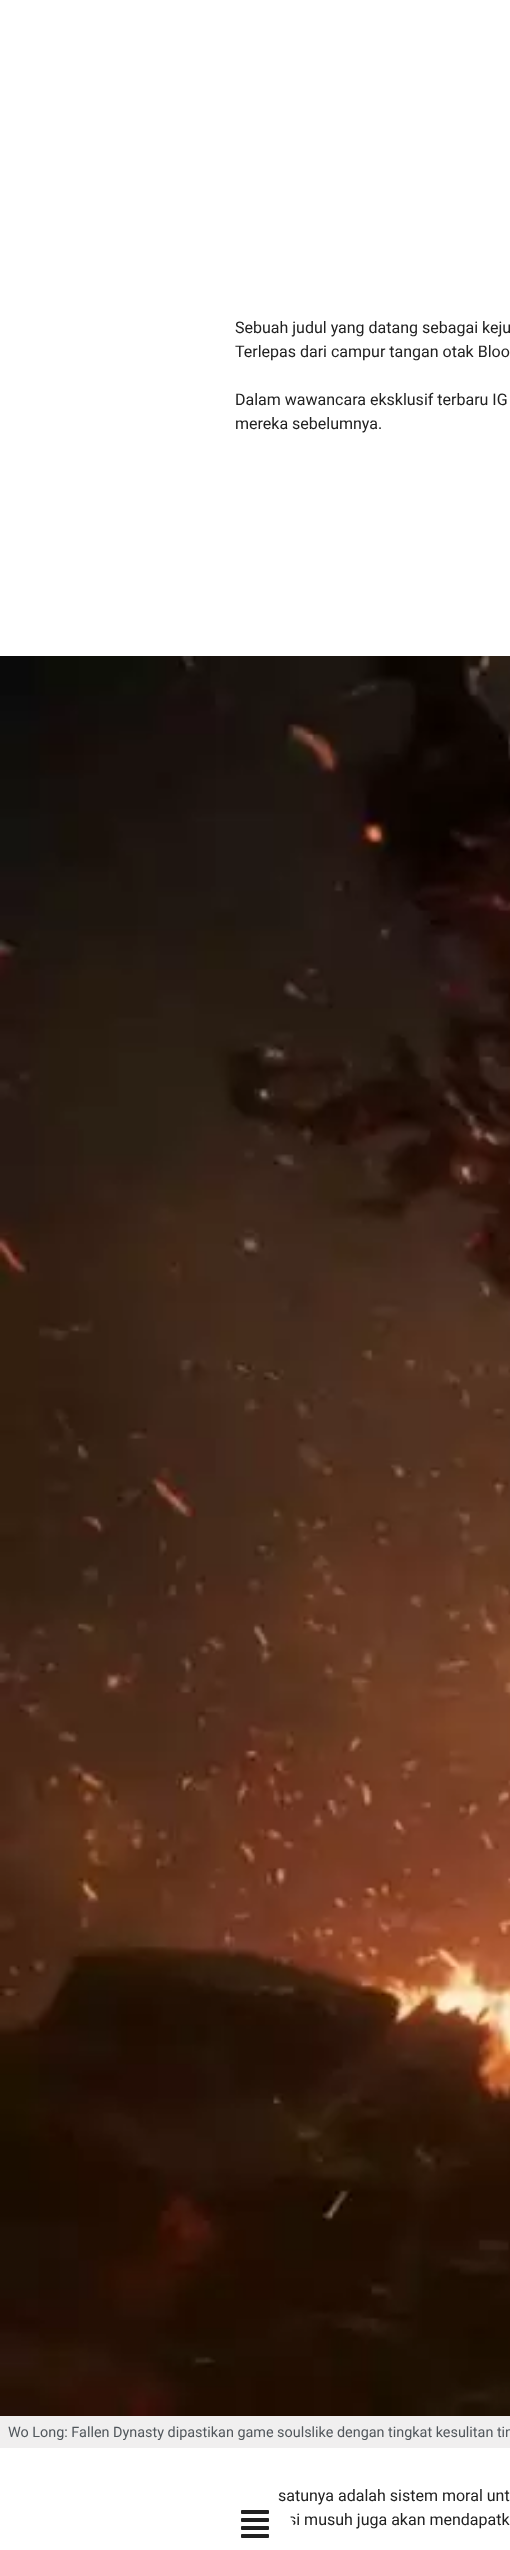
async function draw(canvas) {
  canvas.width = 510
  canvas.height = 2550
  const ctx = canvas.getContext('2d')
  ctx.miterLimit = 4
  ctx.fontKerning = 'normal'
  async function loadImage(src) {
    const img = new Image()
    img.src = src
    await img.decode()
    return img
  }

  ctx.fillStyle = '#fff'
  ctx.fillRect(0, 0, 510, 2550)
  ctx.font = '16px Roboto'
  ctx.fillStyle = '#212121'
  ctx.fillText('Sebuah judul yang datang sebagai keju', 235, 333)
  ctx.fillText('Terlepas dari campur tangan otak Bloo', 235, 357)
  ctx.fillText('Dalam wawancara eksklusif terbaru IG', 235, 405)
  ctx.fillText('mereka sebelumnya.', 235, 429)
  ctx.fillStyle = '#f0efef'
  ctx.fillRect(0, 2416, 510, 32)
  ctx.drawImage(await loadImage('image0.png'), 0, 656, 510, 1760)
  ctx.font = '14.4px Roboto'
  ctx.fillStyle = '#51575c'
  ctx.fillText('Wo Long: Fallen Dynasty dipastikan game soulslike dengan tingkat kesulitan tin', 8, 2437)
  ctx.font = '16px Roboto'
  ctx.fillStyle = '#212121'
  ctx.fillText('satunya adalah sistem moral unt', 278, 2501)
  ctx.fillText('si musuh juga akan mendapatk', 288, 2525)
  ctx.fillStyle = '#fff'
  ctx.beginPath()
  ctx.arc(255, 2535, 40, 0, 2 * Math.PI)
  ctx.fill()
  ctx.drawImage(await loadImage('image1.png'), 241, 2510, 28, 28)
}

draw(document.querySelector('canvas'))
